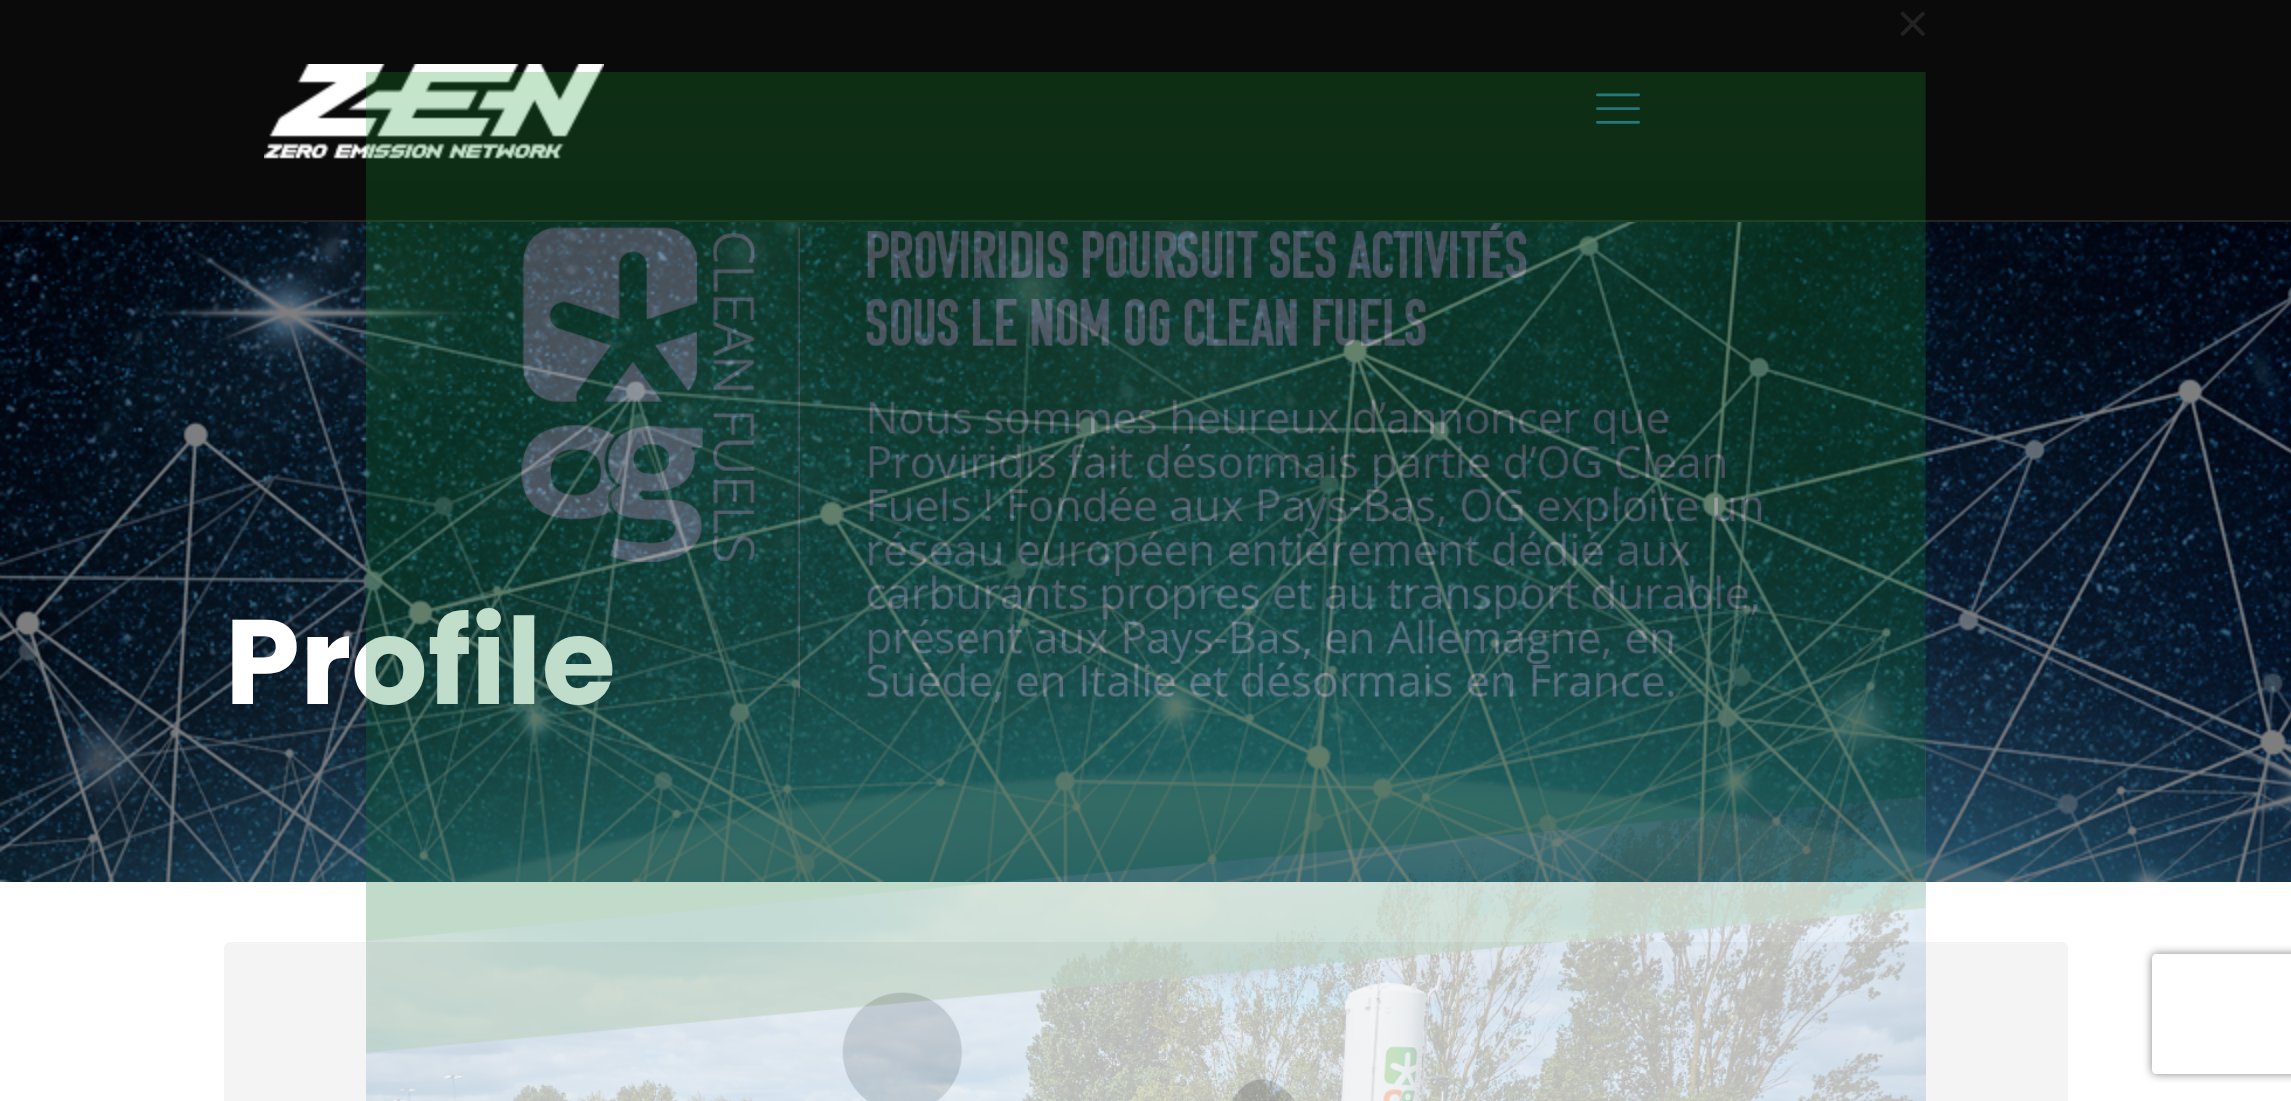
async function draw(canvas) {
  canvas.width = 2291
  canvas.height = 1101
  const ctx = canvas.getContext('2d')
  ctx.miterLimit = 4
  ctx.fontKerning = 'normal'
  async function loadImage(src) {
    const img = new Image()
    img.src = src
    await img.decode()
    return img
  }

  ctx.fillStyle = '#fff'
  ctx.fillRect(0, 0, 2291, 1101)
  ctx.fillStyle = '#0a0a0a'
  ctx.fillRect(0, 0, 2291, 220)
  ctx.font = '300 60px Poppins'
  ctx.fillStyle = '#222'
  ctx.fillText('×', 1895, 46)
  ctx.drawImage(await loadImage('image1.png'), 0, 222, 2291, 660)
  ctx.fillStyle = '#232323'
  ctx.fillRect(0, 220, 2291, 2)
  ctx.drawImage(await loadImage('image2.png'), 264, 64, 340, 95)
  ctx.drawImage(await loadImage('image3.png'), 1596, 93, 44, 31)
  ctx.font = 'bold 120px Poppins'
  ctx.fillStyle = '#fff'
  ctx.fillText('Profile', 225, 704)
  ctx.drawImage(await loadImage('image4.png'), 224, 942, 1844, 159)
  ctx.drawImage(await loadImage('image0.png'), 366, 72, 1560, 1029)
  ctx.save()
  ctx.beginPath()
  ctx.moveTo(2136, 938)
  ctx.lineTo(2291, 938)
  ctx.lineTo(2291, 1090)
  ctx.lineTo(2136, 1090)
  ctx.closePath()
  ctx.moveTo(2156, 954)
  ctx.lineTo(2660, 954)
  ctx.bezierCurveTo(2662, 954, 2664, 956, 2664, 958)
  ctx.lineTo(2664, 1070)
  ctx.bezierCurveTo(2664, 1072, 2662, 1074, 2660, 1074)
  ctx.lineTo(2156, 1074)
  ctx.bezierCurveTo(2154, 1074, 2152, 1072, 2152, 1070)
  ctx.lineTo(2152, 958)
  ctx.bezierCurveTo(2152, 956, 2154, 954, 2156, 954)
  ctx.closePath()
  ctx.clip('evenodd')
  ctx.fillStyle = '#808080'
  ctx.filter = 'blur(5px)'
  ctx.beginPath()
  ctx.roundRect(2152, 954, 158, 120, 4)
  ctx.fill()
  ctx.filter = 'none'
  ctx.restore()
}

draw(document.querySelector('canvas'))
